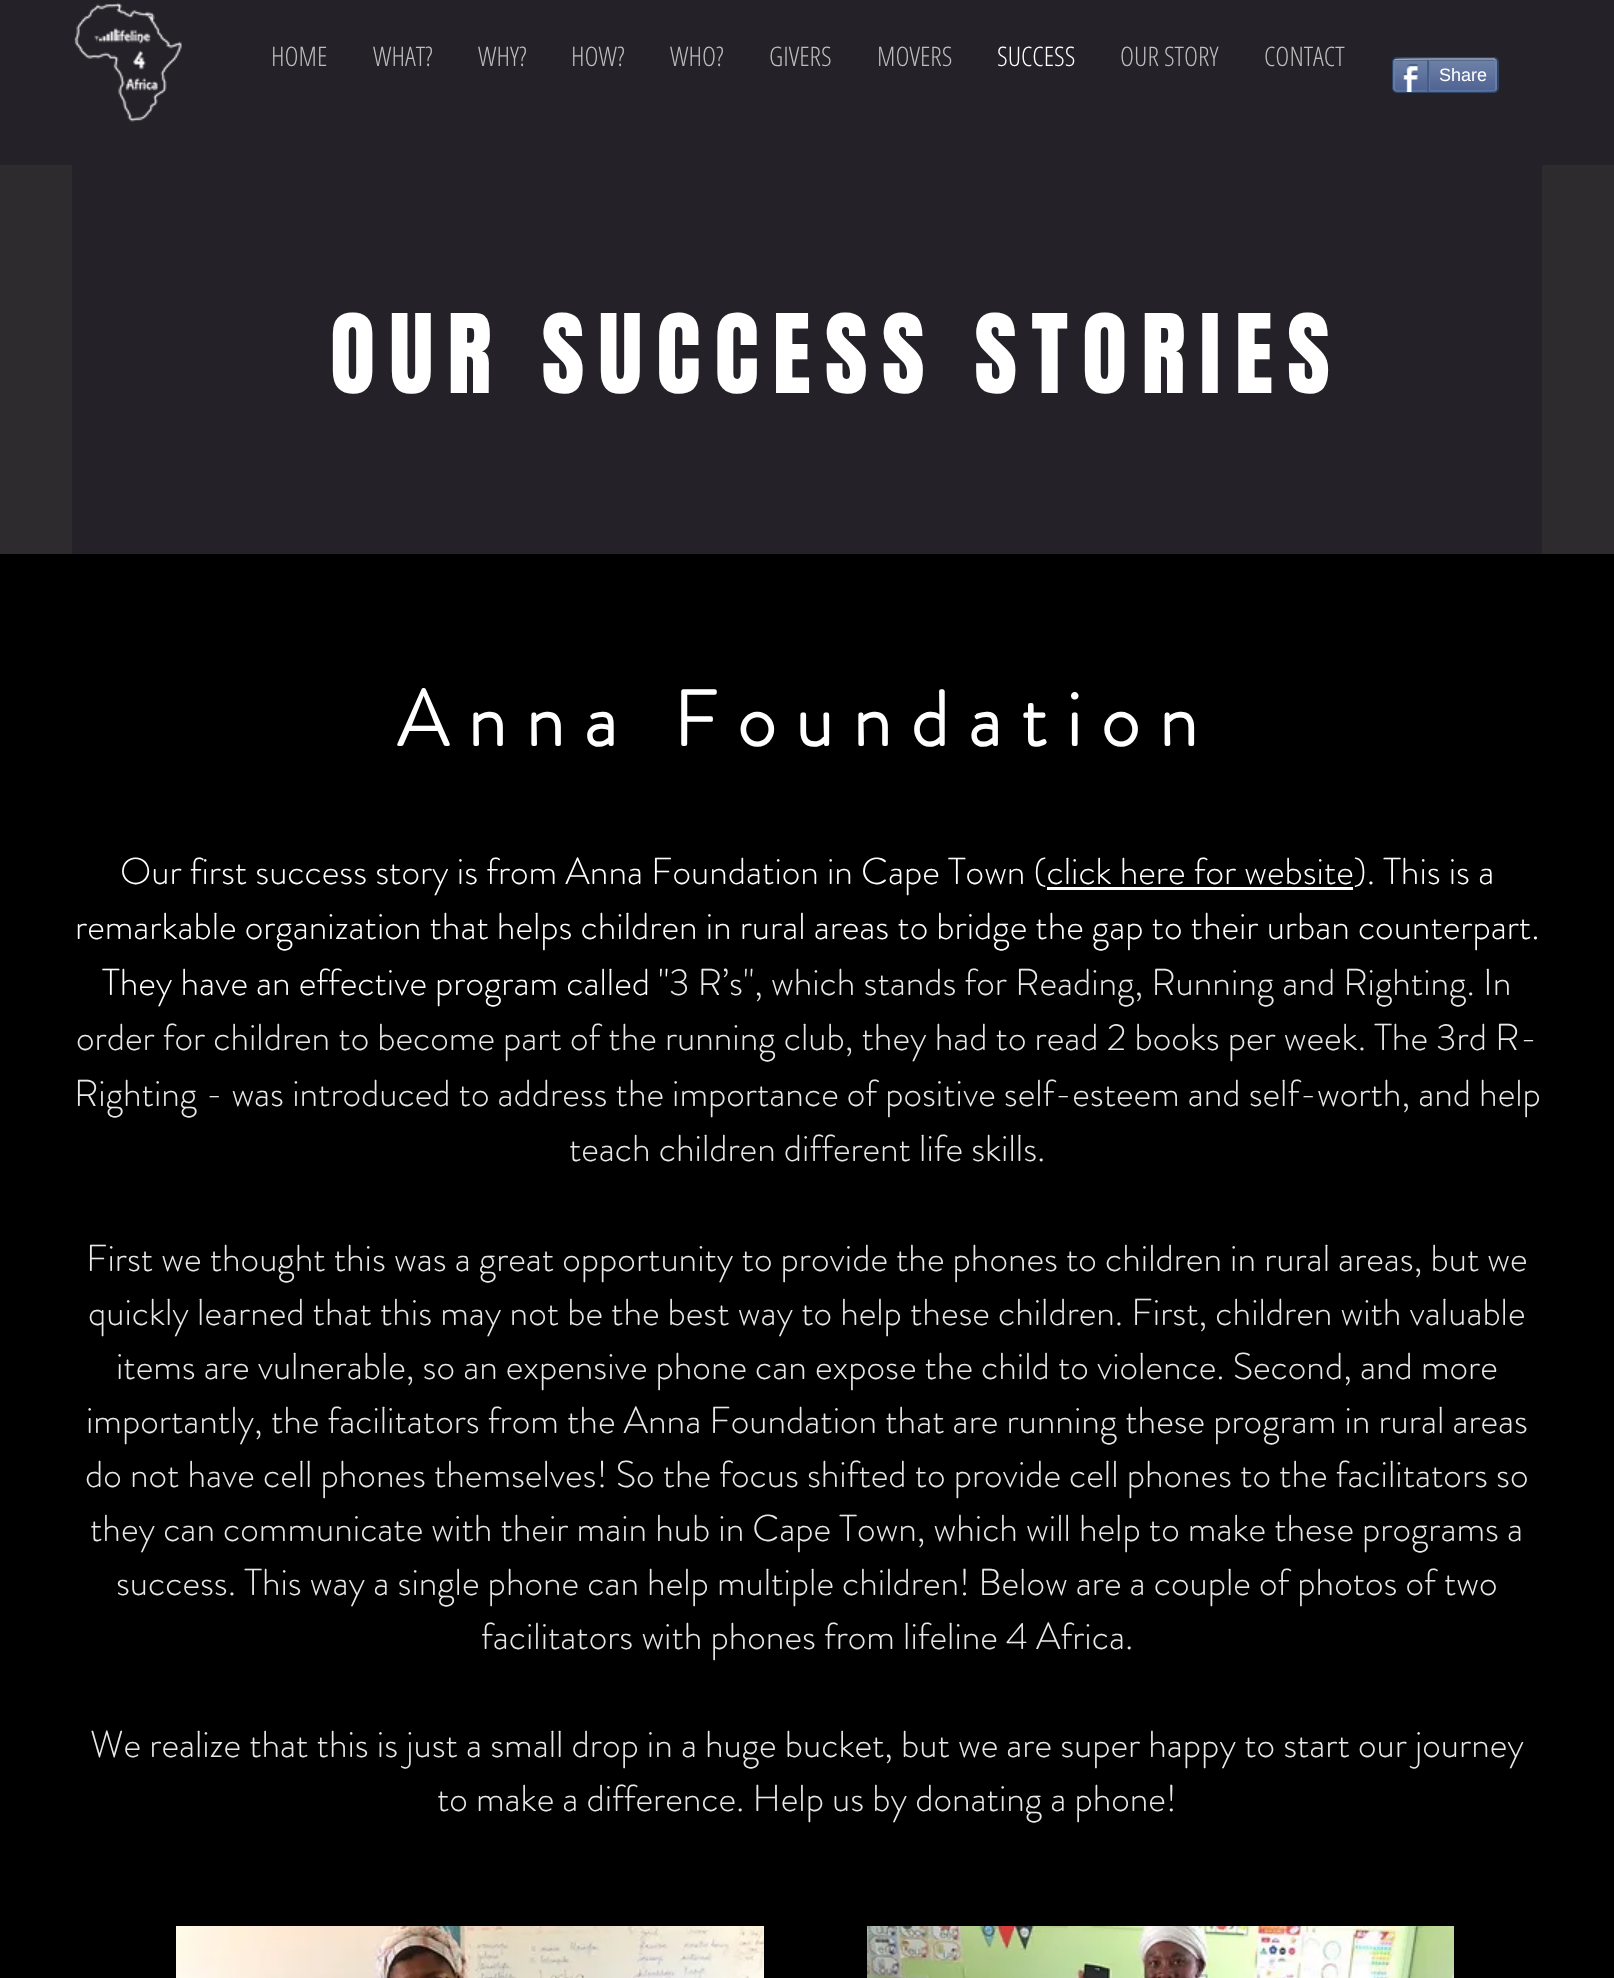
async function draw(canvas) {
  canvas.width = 1614
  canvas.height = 1978
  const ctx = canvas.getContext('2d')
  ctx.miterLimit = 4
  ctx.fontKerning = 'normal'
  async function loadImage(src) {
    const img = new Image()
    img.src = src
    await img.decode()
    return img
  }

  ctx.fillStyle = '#2d2b2d'
  ctx.fillRect(0, 0, 1614, 1978)
  ctx.fillStyle = '#252128'
  ctx.fillRect(0, 0, 1614, 165)
  ctx.drawImage(await loadImage('image0.png'), 74, 2, 108, 120)
  ctx.font = '300 27px Open Sans Condensed'
  ctx.fillStyle = '#bdbdbd'
  ctx.fillText('HOME', 271, 66)
  ctx.fillText('WHAT?', 373, 66)
  ctx.fillText('WHY?', 478, 66)
  ctx.fillText('HOW?', 571, 66)
  ctx.fillText('WHO?', 670, 66)
  ctx.fillText('GIVERS', 769, 66)
  ctx.fillText('MOVERS', 877, 66)
  ctx.fillStyle = '#fff'
  ctx.fillText('SUCCESS', 997, 66)
  ctx.fillStyle = '#bdbdbd'
  ctx.fillText('OUR STORY', 1120, 66)
  ctx.fillText('CONTACT', 1264, 66)
  ctx.beginPath()
  ctx.roundRect(1393, 58, 105, 34, 4)
  ctx.strokeStyle = '#2d4565'
  ctx.lineWidth = 2
  ctx.stroke()
  ctx.drawImage(await loadImage('image1.png'), 1393, 59, 104, 33)
  ctx.beginPath()
  ctx.moveTo(1395, 60)
  ctx.lineTo(1395.5, 59.5)
  ctx.bezierCurveTo(1397, 58.5, 1469.5, 59, 1478, 59)
  ctx.lineTo(1494, 59)
  ctx.lineTo(1495.5, 60)
  ctx.strokeStyle = '#9aabc6'
  ctx.lineWidth = 1.5
  ctx.stroke()
  ctx.beginPath()
  ctx.moveTo(1495.5, 60)
  ctx.bezierCurveTo(1496, 60.5, 1496, 61, 1496, 61.5)
  ctx.lineTo(1496, 88.5)
  ctx.bezierCurveTo(1496, 89, 1496, 89.5, 1495.5, 90)
  ctx.strokeStyle = '#6f83ad'
  ctx.stroke()
  ctx.beginPath()
  ctx.moveTo(1495.5, 90)
  ctx.lineTo(1495, 90.5)
  ctx.bezierCurveTo(1493.5, 91.5, 1421, 91, 1413, 91)
  ctx.lineTo(1396.5, 91)
  ctx.lineTo(1395, 90)
  ctx.strokeStyle = '#6176a3'
  ctx.stroke()
  ctx.beginPath()
  ctx.moveTo(1395, 90)
  ctx.bezierCurveTo(1394.5, 89.5, 1394, 89, 1394, 88.5)
  ctx.lineTo(1394, 61.5)
  ctx.bezierCurveTo(1394, 61, 1394.5, 60.5, 1395, 60)
  ctx.strokeStyle = '#6f83ad'
  ctx.stroke()
  ctx.drawImage(await loadImage('image2.png'), 1402, 64, 16, 28)
  ctx.fillStyle = '#425e85'
  ctx.fillRect(1427, 60, 2, 32)
  ctx.font = '18px Liberation Sans'
  ctx.fillStyle = '#fff'
  ctx.fillText('Share', 1439, 81)
  ctx.fillStyle = '#6176a3'
  ctx.fillRect(1429, 60, 1, 30)
  ctx.fillStyle = '#252128'
  ctx.fillRect(72, 165, 1470, 389)
  ctx.letterSpacing = '14px'
  ctx.font = '93px Anton'
  ctx.fillStyle = '#fff'
  ctx.fillText('OUR SUCCESS STORIES', 330, 393)
  ctx.fillStyle = '#000'
  ctx.fillRect(0, 554, 1614, 1424)
  ctx.letterSpacing = '19.5px'
  ctx.font = 'bold 78px "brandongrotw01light"'
  ctx.fillStyle = '#fff'
  ctx.fillText('Anna Foundation', 397, 746)
  ctx.letterSpacing = '0px'
  ctx.font = '300 37.5px "brandongrotw01light"'
  ctx.fillText('Our first success story is from Anna Foundation in Cape Town (click here for website). This is a', 120, 884)
  ctx.fillRect(1047, 887, 306, 3)
  ctx.fillText('remarkable organization that helps children in rural areas to bridge the gap to their urban counterpart.', 75, 939)
  ctx.fillText('They have an effective program called "', 102, 995)
  ctx.fillStyle = '#e8e8e8'
  ctx.fillText('3 R’s", which stands for Reading, Running and Righting. In', 669, 995)
  ctx.fillText('order for children to become part of the running club, they had to read 2 books per week. The 3rd R-', 76, 1050)
  ctx.fillText('Righting - was introduced to address the importance of positive self-esteem and self-worth, and help', 74, 1106)
  ctx.fillText('teach children different life skills.', 569, 1161)
  ctx.fillText('First we thought this was a great opportunity to provide the phones to children in rural areas, but we', 86, 1271)
  ctx.fillText('quickly learned that this may not be the best way to help these children. First, children with valuable', 88, 1325)
  ctx.fillText('items are vulnerable, so an expensive phone can expose the child to violence. Second, and more', 116, 1379)
  ctx.fillText('importantly, the facilitators from the Anna Foundation that are running these program in rural areas', 86, 1433)
  ctx.fillText('do not have cell phones themselves! So the focus shifted to provide cell phones to the facilitators so', 85, 1487)
  ctx.fillText('they can communicate with their main hub in Cape Town, which will help to make these programs a', 90, 1541)
  ctx.fillText('success. This way a single phone can help multiple children! Below are a couple of photos of two', 116, 1595)
  ctx.fillText('facilitators with phones from lifeline 4 Africa.', 481, 1649)
  ctx.fillText('We realize that this is just a small drop in a huge bucket, but we are super happy to start our journey', 90, 1757)
  ctx.fillText('to make a difference. Help us by donating a phone!', 437, 1811)
  ctx.drawImage(await loadImage('image3.png'), 176, 1926, 588, 52)
  ctx.drawImage(await loadImage('image4.png'), 867, 1926, 587, 52)
}

draw(document.querySelector('canvas'))
